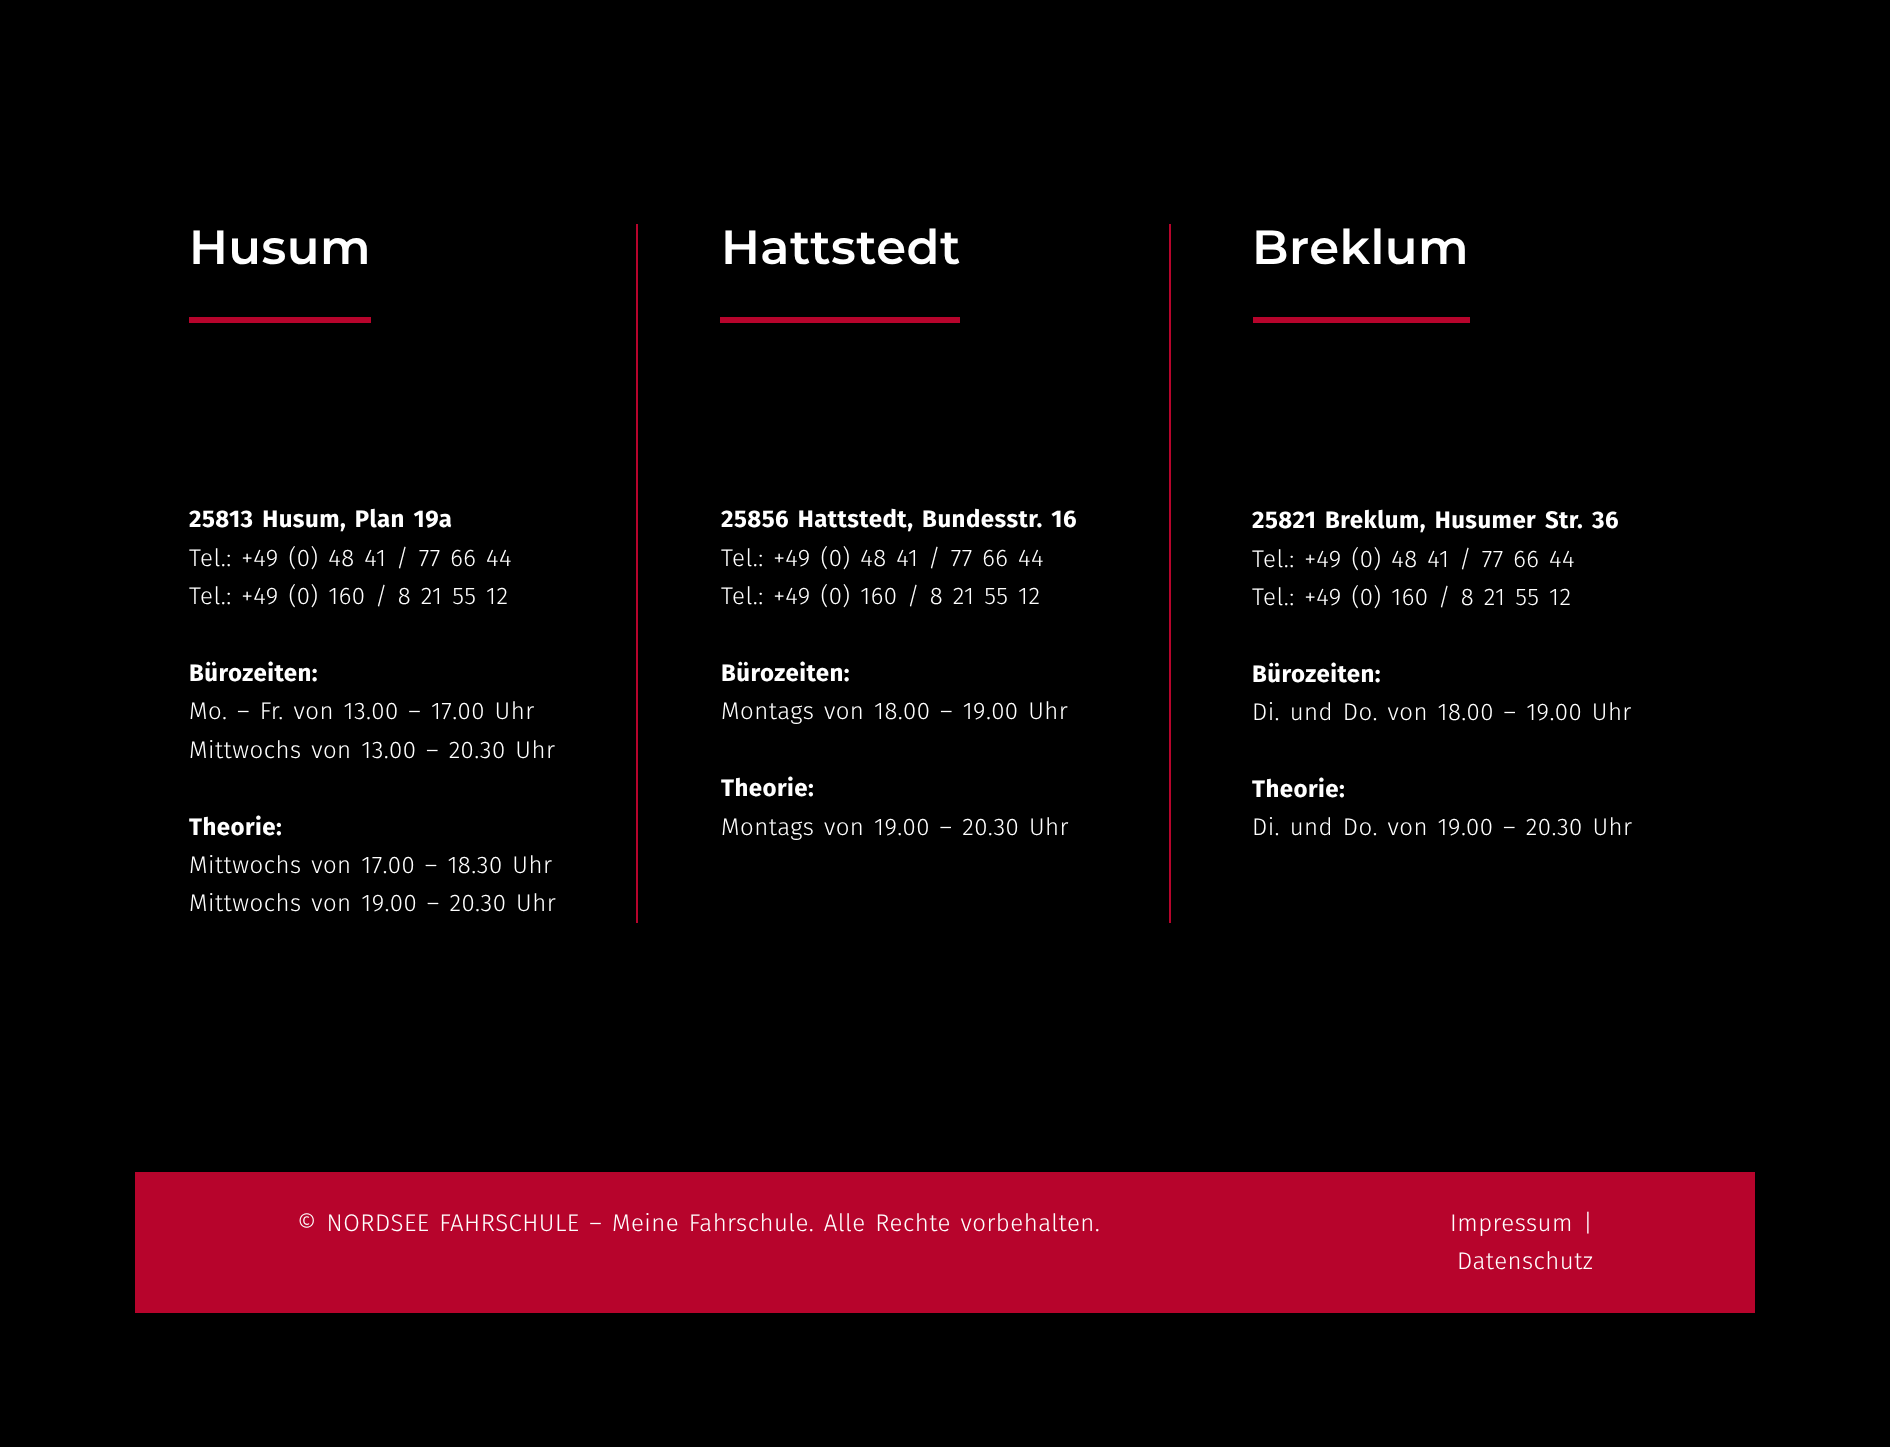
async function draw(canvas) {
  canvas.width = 1890
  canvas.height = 1447
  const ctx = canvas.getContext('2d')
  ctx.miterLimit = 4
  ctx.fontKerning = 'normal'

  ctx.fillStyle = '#000'
  ctx.fillRect(0, 0, 1890, 1447)
  ctx.fillStyle = '#b7042c'
  ctx.fillRect(636, 224, 2, 699)
  ctx.fillRect(189, 317, 182, 6)
  ctx.letterSpacing = '0.48px'
  ctx.font = '600 48px Montserrat'
  ctx.fillStyle = '#fff'
  ctx.fillText('Husum', 189, 264)
  ctx.wordSpacing = '2.5px'
  ctx.font = 'bold 24px Fira Sans'
  ctx.fillText('25813 Husum, Plan 19a', 189, 527)
  ctx.font = '300 24px Fira Sans'
  ctx.fillText('Tel.: +49 (0) 48 41 / 77 66 44', 189, 566)
  ctx.fillText('Tel.: +49 (0) 160 / 8 21 55 12', 189, 604)
  ctx.wordSpacing = '0px'
  ctx.font = 'bold 24px Fira Sans'
  ctx.fillText('Bürozeiten:', 189, 681)
  ctx.wordSpacing = '2.5px'
  ctx.font = '300 24px Fira Sans'
  ctx.fillText('Mo. – Fr. von 13.00 – 17.00 Uhr', 189, 719)
  ctx.fillText('Mittwochs von 13.00 – 20.30 Uhr', 189, 758)
  ctx.wordSpacing = '0px'
  ctx.font = 'bold 24px Fira Sans'
  ctx.fillText('Theorie:', 189, 835)
  ctx.wordSpacing = '2.5px'
  ctx.font = '300 24px Fira Sans'
  ctx.fillText('Mittwochs von 17.00 – 18.30 Uhr', 189, 873)
  ctx.fillText('Mittwochs von 19.00 – 20.30 Uhr', 189, 911)
  ctx.fillStyle = '#b7042c'
  ctx.fillRect(1169, 224, 2, 699)
  ctx.fillRect(720, 317, 240, 6)
  ctx.wordSpacing = '0px'
  ctx.font = '600 48px Montserrat'
  ctx.fillStyle = '#fff'
  ctx.fillText('Hattstedt', 721, 264)
  ctx.wordSpacing = '2.5px'
  ctx.font = 'bold 24px Fira Sans'
  ctx.fillText('25856 Hattstedt, Bundesstr. 16', 721, 527)
  ctx.font = '300 24px Fira Sans'
  ctx.fillText('Tel.: +49 (0) 48 41 / 77 66 44', 721, 566)
  ctx.fillText('Tel.: +49 (0) 160 / 8 21 55 12', 721, 604)
  ctx.wordSpacing = '0px'
  ctx.font = 'bold 24px Fira Sans'
  ctx.fillText('Bürozeiten:', 721, 681)
  ctx.wordSpacing = '2.5px'
  ctx.font = '300 24px Fira Sans'
  ctx.fillText('Montags von 18.00 – 19.00 Uhr', 721, 719)
  ctx.wordSpacing = '0px'
  ctx.font = 'bold 24px Fira Sans'
  ctx.fillText('Theorie:', 721, 796)
  ctx.wordSpacing = '2.5px'
  ctx.font = '300 24px Fira Sans'
  ctx.fillText('Montags von 19.00 – 20.30 Uhr', 721, 835)
  ctx.fillStyle = '#b7042c'
  ctx.fillRect(1253, 317, 217, 6)
  ctx.wordSpacing = '0px'
  ctx.font = '600 48px Montserrat'
  ctx.fillStyle = '#fff'
  ctx.fillText('Breklum', 1252, 264)
  ctx.wordSpacing = '2.5px'
  ctx.font = 'bold 24px Fira Sans'
  ctx.fillText('25821 Breklum, Husumer Str. 36', 1252, 528)
  ctx.font = '300 24px Fira Sans'
  ctx.fillText('Tel.: +49 (0) 48 41 / 77 66 44', 1252, 567)
  ctx.fillText('Tel.: +49 (0) 160 / 8 21 55 12', 1252, 605)
  ctx.wordSpacing = '0px'
  ctx.font = 'bold 24px Fira Sans'
  ctx.fillText('Bürozeiten:', 1252, 682)
  ctx.wordSpacing = '2.5px'
  ctx.font = '300 24px Fira Sans'
  ctx.fillText('Di. und Do. von 18.00 – 19.00 Uhr', 1252, 720)
  ctx.wordSpacing = '0px'
  ctx.font = 'bold 24px Fira Sans'
  ctx.fillText('Theorie:', 1252, 797)
  ctx.wordSpacing = '2.5px'
  ctx.font = '300 24px Fira Sans'
  ctx.fillText('Di. und Do. von 19.00 – 20.30 Uhr', 1252, 835)
  ctx.fillStyle = '#b7042c'
  ctx.fillRect(135, 1172, 1620, 141)
  ctx.fillStyle = '#fff'
  ctx.fillText('© NORDSEE FAHRSCHULE – Meine Fahrschule. Alle Rechte vorbehalten.', 297, 1231)
  ctx.wordSpacing = '0px'
  ctx.fillText('Impressum', 1450, 1231)
  ctx.fillText('|', 1583, 1231)
  ctx.fillText('Datenschutz', 1457, 1269)
}

draw(document.querySelector('canvas'))
